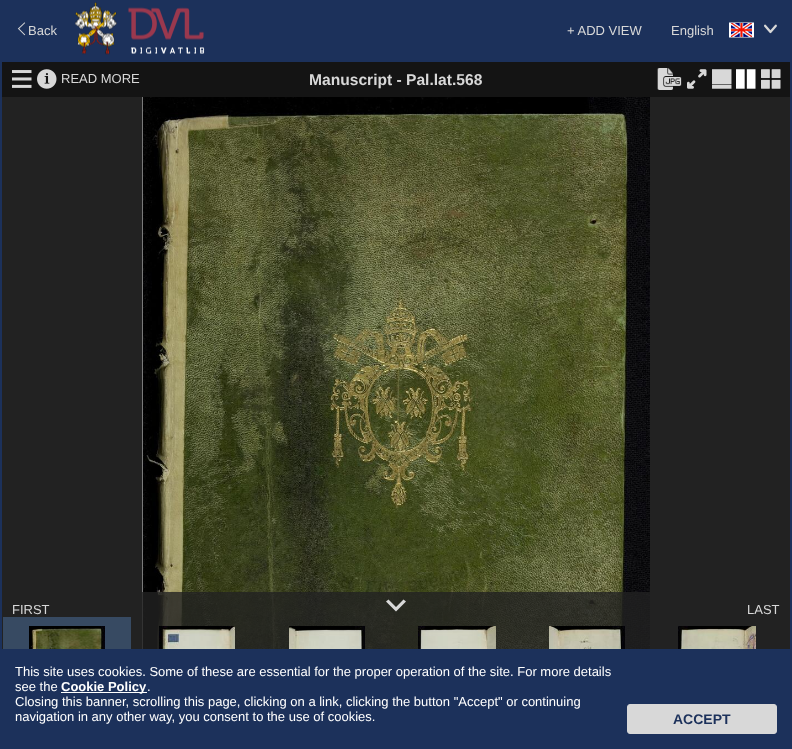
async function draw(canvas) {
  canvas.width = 792
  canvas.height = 749
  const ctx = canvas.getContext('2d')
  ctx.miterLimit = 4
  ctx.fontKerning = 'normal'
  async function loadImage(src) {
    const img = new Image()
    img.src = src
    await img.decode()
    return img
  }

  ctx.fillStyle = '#1c315b'
  ctx.fillRect(0, 0, 792, 749)
  ctx.drawImage(await loadImage('image0.png'), 17, 22, 9, 14)
  ctx.font = '13px Liberation Sans'
  ctx.fillStyle = '#d8d8d8'
  ctx.fillText('Back', 28, 35)
  ctx.drawImage(await loadImage('image1.png'), 75, 2, 130, 53)
  ctx.fillText('+ ADD VIEW', 567, 35)
  ctx.drawImage(await loadImage('image2.png'), 729, 22, 25, 16)
  ctx.fillText('English', 671, 35)
  ctx.drawImage(await loadImage('image3.png'), 764, 24, 13, 10)
  ctx.fillStyle = '#141414'
  ctx.fillRect(2, 62, 788, 35)
  ctx.drawImage(await loadImage('image4.png'), 12, 70, 20, 18)
  ctx.drawImage(await loadImage('image5.png'), 37, 69, 20, 20)
  ctx.fillStyle = '#d8d8d8'
  ctx.fillText('READ MORE', 61, 83)
  ctx.font = 'bold 15.6px Liberation Sans'
  ctx.fillText('Manuscript - Pal.lat.568', 309, 85)
  ctx.drawImage(await loadImage('image6.png'), 657, 68, 25, 22)
  ctx.drawImage(await loadImage('image7.png'), 687, 69, 20, 20)
  ctx.drawImage(await loadImage('image8.png'), 712, 69, 20, 20)
  ctx.drawImage(await loadImage('image9.png'), 736, 69, 20, 20)
  ctx.drawImage(await loadImage('image10.png'), 761, 69, 20, 20)
  ctx.fillStyle = '#222'
  ctx.fillRect(2, 97, 788, 552)
  ctx.drawImage(await loadImage('image11.png'), 142, 97, 508, 552)
  ctx.fillStyle = '#222222cc'
  ctx.fillRect(142, 592, 508, 57)
  ctx.font = '13px Liberation Sans'
  ctx.fillStyle = '#d8d8d8'
  ctx.fillText('FIRST', 12, 614)
  ctx.beginPath()
  ctx.moveTo(403.5, 599.5)
  ctx.lineTo(396, 607)
  ctx.lineTo(388.5, 599.5)
  ctx.lineTo(386, 601.5)
  ctx.lineTo(396, 611.5)
  ctx.lineTo(406, 601.5)
  ctx.closePath()
  ctx.fill()
  ctx.fillText('LAST', 747, 614)
  ctx.fillStyle = '#374a62'
  ctx.fillRect(3, 617, 128, 32)
  ctx.drawImage(await loadImage('image12.png'), 29, 626, 76, 23)
  ctx.drawImage(await loadImage('image13.png'), 159, 626, 76, 23)
  ctx.drawImage(await loadImage('image14.png'), 289, 626, 76, 23)
  ctx.drawImage(await loadImage('image15.png'), 418, 626, 78, 23)
  ctx.drawImage(await loadImage('image16.png'), 549, 626, 76, 23)
  ctx.drawImage(await loadImage('image17.png'), 678, 626, 78, 23)
  ctx.fillStyle = '#fff'
  ctx.fillText('This site uses cookies. Some of these are essential for the proper operation of the site. For more details', 15, 676)
  ctx.fillText('see the', 15, 691)
  ctx.fillRect(61, 692, 86, 1)
  ctx.font = 'bold 13px Liberation Sans'
  ctx.fillText('Cookie Policy', 61, 691)
  ctx.font = '13px Liberation Sans'
  ctx.fillText('.', 147, 691)
  ctx.fillText('Closing this banner, scrolling this page, clicking on a link, clicking the button "Accept" or continuing', 15, 706)
  ctx.fillText('navigation in any other way, you consent to the use of cookies.', 15, 721)
  ctx.fillStyle = '#d8d8d8'
  ctx.beginPath()
  ctx.roundRect(627.5, 704.5, 149, 29, 2.5)
  ctx.fill()
  ctx.strokeStyle = '#d8d8d8'
  ctx.stroke()
  ctx.font = 'bold 14px Liberation Sans'
  ctx.fillStyle = '#1c315b'
  ctx.fillText('ACCEPT', 673, 724)
}

draw(document.querySelector('canvas'))
